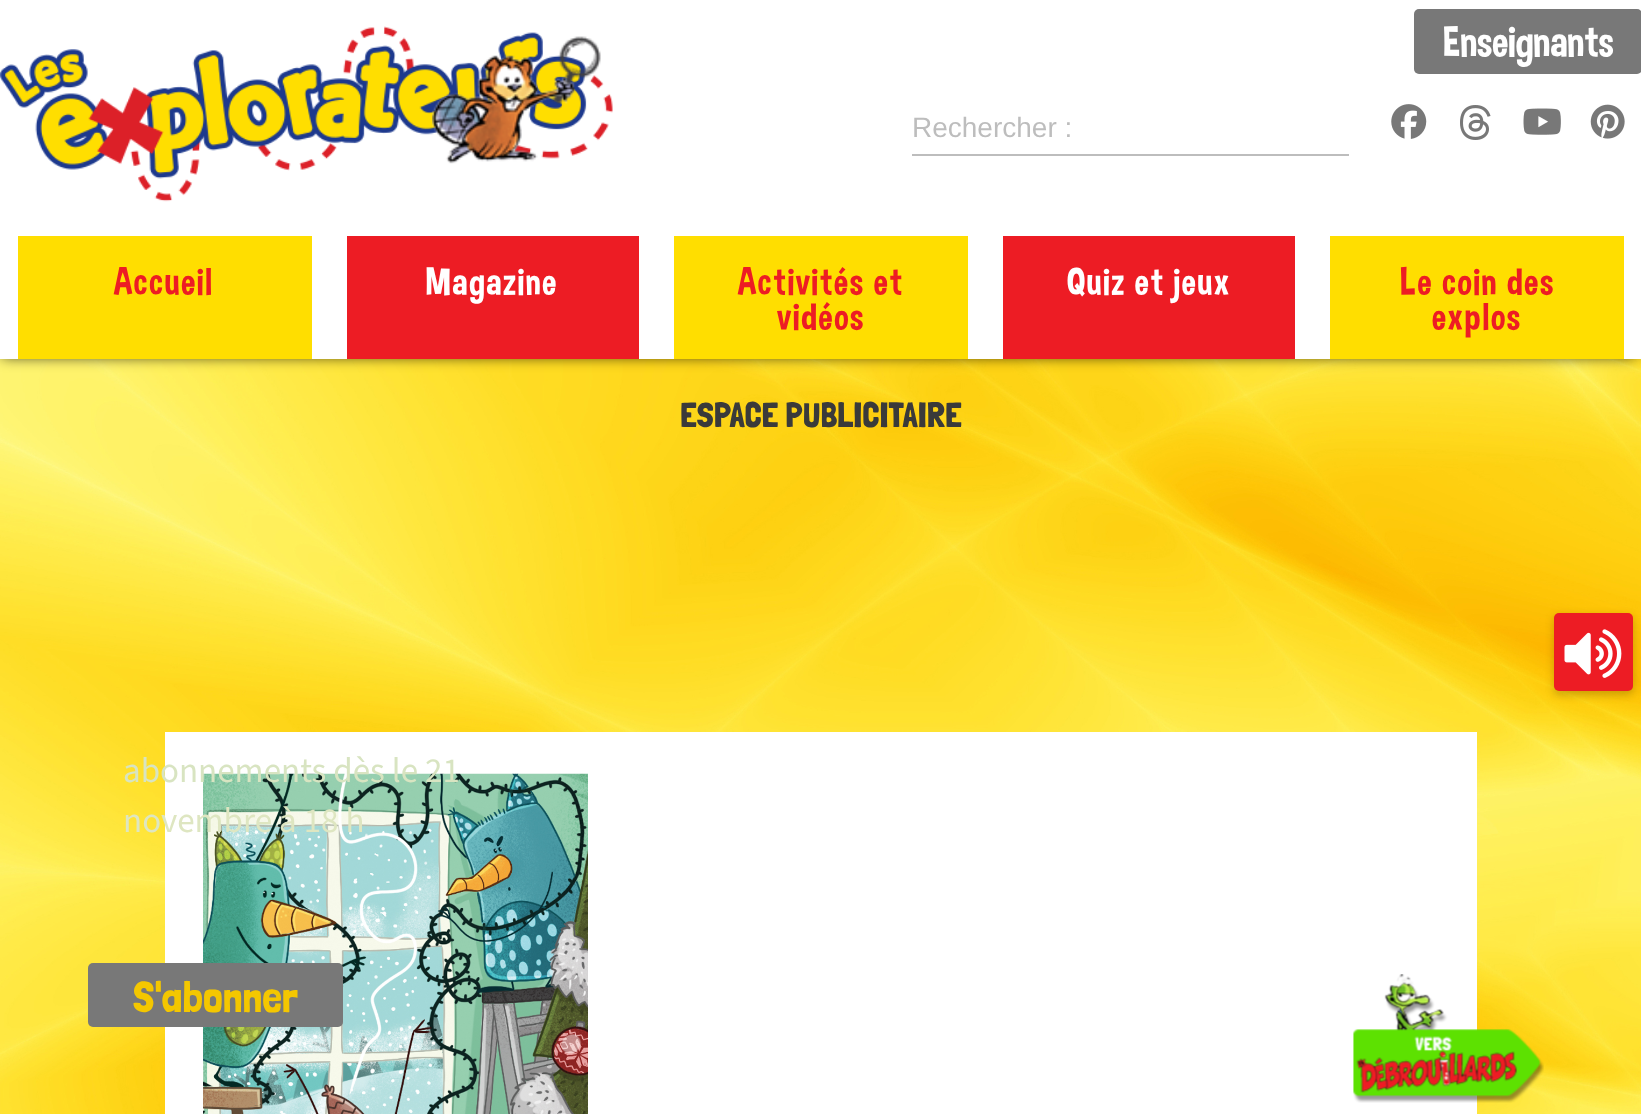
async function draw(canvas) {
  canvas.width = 1641
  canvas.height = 1114
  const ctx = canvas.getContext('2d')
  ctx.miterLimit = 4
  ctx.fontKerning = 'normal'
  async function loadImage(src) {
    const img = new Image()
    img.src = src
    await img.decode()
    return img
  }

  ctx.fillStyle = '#fff'
  ctx.fillRect(0, 0, 1641, 1114)
  ctx.drawImage(await loadImage('image0.png'), 0, 359, 1641, 755)
  ctx.fillStyle = '#000000bf'
  ctx.filter = 'blur(7px)'
  ctx.beginPath()
  ctx.rect(2, 5, 1634, 352)
  ctx.fill()
  ctx.filter = 'none'
  ctx.fillStyle = '#fff'
  ctx.fillRect(0, 0, 1641, 359)
  ctx.drawImage(await loadImage('image1.png'), 0, 26, 613, 176)
  ctx.fillStyle = '#787878'
  ctx.beginPath()
  ctx.roundRect(1414, 9, 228, 65, 5)
  ctx.fill()
  ctx.font = '44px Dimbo'
  ctx.fillStyle = '#fff'
  ctx.fillText('Enseignants', 1443, 58)
  ctx.drawImage(await loadImage('image2.png'), 432, 36, 169, 128)
  ctx.font = '28px Liberation Sans'
  ctx.fillStyle = '#bdbdbd'
  ctx.fillText('Rechercher :', 912, 137)
  ctx.fillRect(912, 154, 437, 2)
  ctx.drawImage(await loadImage('image3.png'), 1391, 104, 36, 35)
  ctx.drawImage(await loadImage('image4.png'), 1460, 105, 31, 35)
  ctx.drawImage(await loadImage('image5.png'), 1523, 108, 38, 27)
  ctx.drawImage(await loadImage('image6.png'), 1590, 104, 35, 35)
  ctx.fillStyle = '#ffde00'
  ctx.fillRect(18, 236, 294, 123)
  ctx.letterSpacing = '1.75px'
  ctx.font = '38.5px Dimbo'
  ctx.fillStyle = '#ed1c24'
  ctx.fillText('Accueil', 114, 296)
  ctx.fillRect(347, 236, 292, 123)
  ctx.fillStyle = '#fff'
  ctx.fillText('Magazine', 426, 296)
  ctx.fillStyle = '#ffde00'
  ctx.fillRect(674, 236, 294, 123)
  ctx.fillStyle = '#ed1c24'
  ctx.fillText('Activités et', 738, 296)
  ctx.fillText('vidéos', 777, 331)
  ctx.fillRect(1003, 236, 292, 123)
  ctx.fillStyle = '#fff'
  ctx.fillText('Quiz et jeux', 1067, 296)
  ctx.fillStyle = '#ffde00'
  ctx.fillRect(1330, 236, 294, 123)
  ctx.fillStyle = '#ed1c24'
  ctx.fillText('Le coin des', 1400, 296)
  ctx.fillText('explos', 1432, 331)
  ctx.letterSpacing = '0px'
  ctx.font = '35px Londrina Solid'
  ctx.fillStyle = '#3a3a3a'
  ctx.fillText('ESPACE PUBLICITAIRE', 680, 427)
  ctx.fillStyle = '#fff'
  ctx.fillRect(165, 732, 1312, 382)
  ctx.drawImage(await loadImage('image7.png'), 203, 773, 385, 341)
  ctx.fillStyle = '#00000033'
  ctx.filter = 'blur(4.5px)'
  ctx.beginPath()
  ctx.roundRect(1554, 616, 79, 79, 5)
  ctx.fill()
  ctx.filter = 'none'
  ctx.fillStyle = '#ed1c24'
  ctx.beginPath()
  ctx.roundRect(1554, 613, 79, 78, 5)
  ctx.fill()
  ctx.drawImage(await loadImage('image8.png'), 1564, 629, 58, 49)
  ctx.font = '35px "Source Sans 3"'
  ctx.fillStyle = '#d8e4c1'
  ctx.fillText('abonnements dès le 21', 123, 782)
  ctx.fillStyle = '#dee6c1'
  ctx.fillText('novembre à 18 h', 123, 832)
  ctx.fillStyle = '#787878'
  ctx.beginPath()
  ctx.roundRect(88, 963, 255, 64, 5)
  ctx.fill()
  ctx.font = '44px Londrina Solid'
  ctx.fillStyle = '#f4c700'
  ctx.fillText('S\'abonner', 133, 1012)
  ctx.drawImage(await loadImage('image9.png'), 1353, 974, 191, 129)
}

draw(document.querySelector('canvas'))
